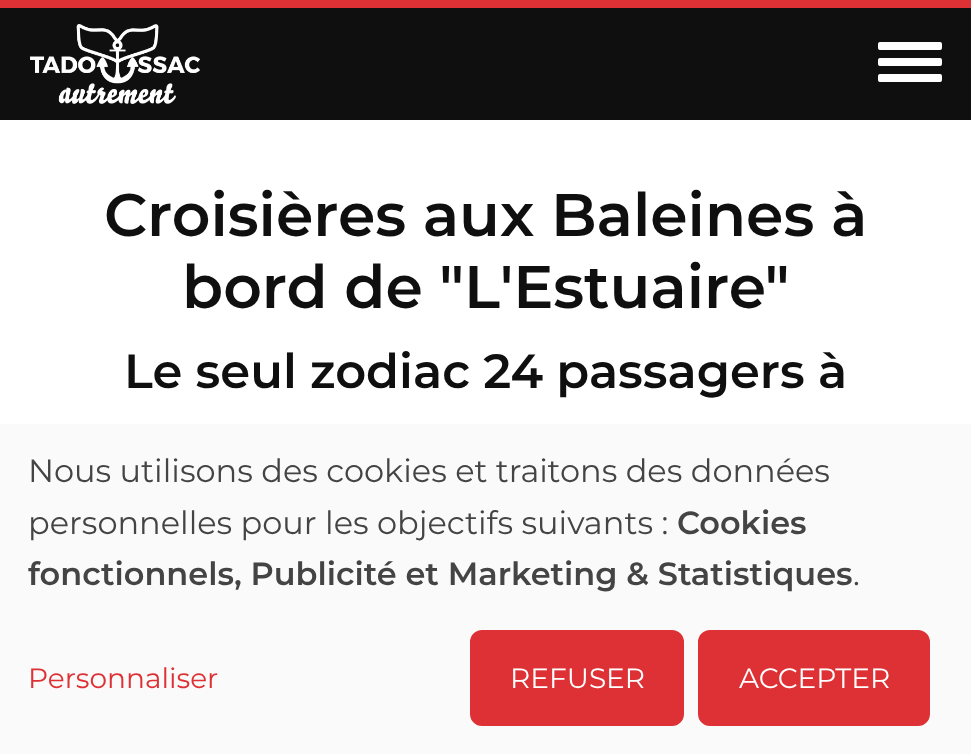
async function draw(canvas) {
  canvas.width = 971
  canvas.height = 754
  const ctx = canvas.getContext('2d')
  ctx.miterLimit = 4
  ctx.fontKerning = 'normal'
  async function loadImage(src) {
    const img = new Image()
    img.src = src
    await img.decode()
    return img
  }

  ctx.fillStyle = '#fff'
  ctx.fillRect(0, 0, 971, 754)
  ctx.fillStyle = '#0f0f0f'
  ctx.fillRect(0, 8, 971, 112)
  ctx.fillStyle = '#dd3135'
  ctx.fillRect(0, 0, 971, 8)
  ctx.drawImage(await loadImage('image0.png'), 30, 24, 170, 80)
  ctx.fillStyle = '#fff'
  ctx.beginPath()
  ctx.roundRect(878, 58, 64, 8, 2)
  ctx.fill()
  ctx.beginPath()
  ctx.roundRect(878, 42, 64, 8, 2)
  ctx.fill()
  ctx.beginPath()
  ctx.roundRect(878, 74, 64, 8, 2)
  ctx.fill()
  ctx.font = '600 60px Montserrat'
  ctx.fillStyle = '#0f0f0f'
  ctx.fillText('Croisières aux Baleines à', 104, 236)
  ctx.fillText('bord de "L\'Estuaire"', 182, 308)
  ctx.font = '600 48px Montserrat'
  ctx.fillText('Le seul zodiac 24 passagers à', 124, 388)
  ctx.fillStyle = '#fafafa'
  ctx.fillRect(0, 424, 971, 330)
  ctx.font = '32px Montserrat'
  ctx.fillStyle = '#444'
  ctx.fillText('Nous utilisons des cookies et traitons des données', 28, 482)
  ctx.fillText('personnelles pour les objectifs suivants :', 28, 534)
  ctx.font = '600 32px Montserrat'
  ctx.fillText('Cookies', 677, 534)
  ctx.fillText('fonctionnels, Publicité et Marketing & Statistiques', 28, 585)
  ctx.font = '32px Montserrat'
  ctx.fillText('.', 853, 585)
  ctx.font = '28px Montserrat'
  ctx.fillStyle = '#dd3135'
  ctx.fillText('Personnaliser', 28, 688)
  ctx.beginPath()
  ctx.roundRect(473, 633, 208, 90, 9)
  ctx.fill()
  ctx.strokeStyle = '#dd3135'
  ctx.lineWidth = 6
  ctx.stroke()
  ctx.fillStyle = '#fff'
  ctx.fillText('REFUSER', 510, 688)
  ctx.fillStyle = '#dd3135'
  ctx.beginPath()
  ctx.roundRect(701, 633, 226, 90, 9)
  ctx.fill()
  ctx.stroke()
  ctx.fillStyle = '#fff'
  ctx.fillText('ACCEPTER', 739, 688)
}

draw(document.querySelector('canvas'))
